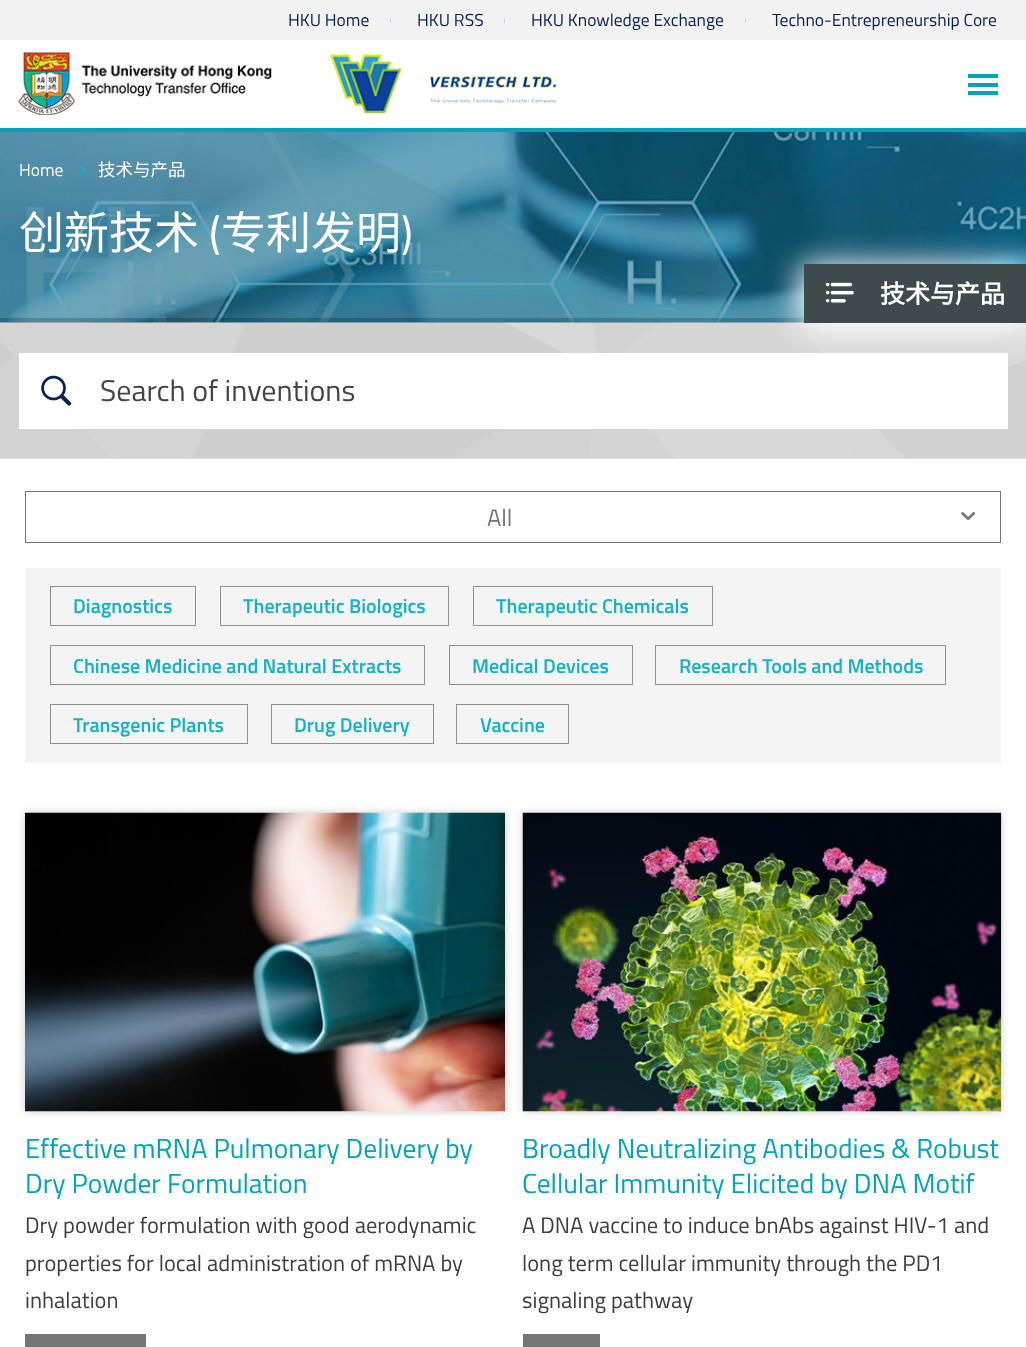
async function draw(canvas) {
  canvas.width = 1026
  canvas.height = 1347
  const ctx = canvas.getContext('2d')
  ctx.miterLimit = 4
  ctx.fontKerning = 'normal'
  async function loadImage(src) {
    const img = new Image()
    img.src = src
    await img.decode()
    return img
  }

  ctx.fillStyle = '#fff'
  ctx.fillRect(0, 0, 1026, 1347)
  ctx.fillStyle = '#f2f2f2'
  ctx.fillRect(0, 0, 1026, 40)
  ctx.font = '17.5px Titillium Web'
  ctx.fillStyle = '#0a1f53'
  ctx.fillText('HKU Home', 288, 26)
  ctx.fillStyle = '#c4cfe1'
  ctx.fillRect(390, 19, 1, 4)
  ctx.fillStyle = '#0a1f53'
  ctx.fillText('HKU RSS', 417, 26)
  ctx.fillStyle = '#c4cfe1'
  ctx.fillRect(504, 19, 1, 4)
  ctx.fillStyle = '#0a1f53'
  ctx.fillText('HKU Knowledge Exchange', 531, 26)
  ctx.fillStyle = '#c4cfe1'
  ctx.fillRect(745, 19, 1, 4)
  ctx.fillStyle = '#0a1f53'
  ctx.fillText('Techno-Entrepreneurship Core', 772, 26)
  ctx.fillStyle = '#00a4b8'
  ctx.fillRect(0, 128, 1026, 4)
  ctx.drawImage(await loadImage('image0.png'), 18, 52, 254, 63)
  ctx.drawImage(await loadImage('image1.png'), 330, 54, 227, 59)
  ctx.fillRect(968, 74, 30, 4)
  ctx.fillRect(968, 83, 30, 4)
  ctx.fillRect(968, 91, 30, 4)
  ctx.drawImage(await loadImage('image2.png'), 0, 132, 1026, 191)
  ctx.fillStyle = '#fff'
  ctx.fillText('Home', 19, 176)
  ctx.drawImage(await loadImage('image3.png'), 80, 165, 6, 11)
  ctx.font = '17.5px Noto Sans CJK SC'
  ctx.fillText('技术与产品', 98, 176)
  ctx.font = '45px Noto Sans CJK SC'
  ctx.fillText('创新技术', 19, 249)
  ctx.font = '45px Titillium Web'
  ctx.fillText('(', 209, 249)
  ctx.font = '45px Noto Sans CJK SC'
  ctx.fillText('专利发明', 221, 249)
  ctx.font = '45px Titillium Web'
  ctx.fillText(')', 401, 249)
  ctx.fillStyle = '#00000033'
  ctx.fillRect(0, 318, 804, 5)
  ctx.drawImage(await loadImage('image5.png'), 0, 322, 1026, 137)
  ctx.fillStyle = '#fff'
  ctx.fillRect(19, 353, 989, 76)
  ctx.filter = 'blur(15.5px)'
  ctx.beginPath()
  ctx.rect(800, 264, 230, 66)
  ctx.fill()
  ctx.filter = 'none'
  ctx.fillStyle = '#3f4a4c'
  ctx.fillRect(804, 264, 222, 59)
  ctx.drawImage(await loadImage('image4.png'), 825, 282, 29, 21)
  ctx.font = 'bold 25px Noto Sans CJK SC'
  ctx.fillStyle = '#fff'
  ctx.fillText('技术与产品', 880, 303)
  ctx.drawImage(await loadImage('image6.png'), 41, 375, 31, 31)
  ctx.font = '30px Titillium Web'
  ctx.fillStyle = '#454545'
  ctx.fillText('Search of inventions', 100, 401)
  ctx.strokeStyle = '#757575'
  ctx.strokeRect(25.5, 491.5, 975, 51)
  ctx.font = '24px Titillium Web'
  ctx.fillStyle = '#757575'
  ctx.fillText('All', 487, 526)
  ctx.drawImage(await loadImage('image7.png'), 961, 512, 14, 9)
  ctx.fillStyle = '#f4f4f4'
  ctx.fillRect(25, 568, 976, 195)
  ctx.strokeStyle = '#8f8f8f'
  ctx.strokeRect(50.5, 586.5, 145, 39)
  ctx.font = '600 20px Titillium Web'
  ctx.fillStyle = '#13b2c5'
  ctx.fillText('Diagnostics', 73, 613)
  ctx.strokeRect(220.5, 586.5, 228, 39)
  ctx.fillText('Therapeutic Biologics', 243, 613)
  ctx.strokeRect(473.5, 586.5, 239, 39)
  ctx.fillText('Therapeutic Chemicals', 496, 613)
  ctx.strokeRect(50.5, 645.5, 374, 39)
  ctx.fillText('Chinese Medicine and Natural Extracts', 73, 673)
  ctx.strokeRect(449.5, 645.5, 183, 39)
  ctx.fillText('Medical Devices', 472, 673)
  ctx.strokeRect(655.5, 645.5, 290, 39)
  ctx.fillText('Research Tools and Methods', 679, 673)
  ctx.strokeRect(50.5, 704.5, 197, 39)
  ctx.fillText('Transgenic Plants', 73, 732)
  ctx.strokeRect(271.5, 704.5, 162, 39)
  ctx.fillText('Drug Delivery', 294, 732)
  ctx.strokeRect(456.5, 704.5, 112, 39)
  ctx.fillText('Vaccine', 480, 732)
  ctx.fillStyle = '#00000033'
  ctx.filter = 'blur(4px)'
  ctx.beginPath()
  ctx.rect(25, 813, 480, 298)
  ctx.fill()
  ctx.filter = 'none'
  ctx.drawImage(await loadImage('image8.png'), 25, 812, 480, 300)
  ctx.font = '27.5px Titillium Web'
  ctx.fillStyle = '#00a4b8'
  ctx.fillText('Effective mRNA Pulmonary Delivery by', 25, 1158)
  ctx.fillText('Dry Powder Formulation', 25, 1193)
  ctx.font = '22.5px Titillium Web'
  ctx.fillStyle = '#3e3e3e'
  ctx.fillText('Dry powder formulation with good aerodynamic', 25, 1233)
  ctx.fillText('properties for local administration of mRNA by', 25, 1271)
  ctx.fillText('inhalation', 25, 1308)
  ctx.fillStyle = '#757575'
  ctx.fillRect(25, 1334, 121, 13)
  ctx.fillStyle = '#00000033'
  ctx.filter = 'blur(4px)'
  ctx.beginPath()
  ctx.rect(523, 813, 478, 298)
  ctx.fill()
  ctx.filter = 'none'
  ctx.drawImage(await loadImage('image9.png'), 522, 812, 480, 300)
  ctx.font = '27.5px Titillium Web'
  ctx.fillStyle = '#00a4b8'
  ctx.fillText('Broadly Neutralizing Antibodies & Robust', 522, 1158)
  ctx.fillText('Cellular Immunity Elicited by DNA Motif', 522, 1193)
  ctx.font = '22.5px Titillium Web'
  ctx.fillStyle = '#3e3e3e'
  ctx.fillText('A DNA vaccine to induce bnAbs against HIV-1 and', 522, 1233)
  ctx.fillText('long term cellular immunity through the PD1', 522, 1271)
  ctx.fillText('signaling pathway', 522, 1308)
  ctx.fillStyle = '#757575'
  ctx.fillRect(523, 1334, 77, 13)
}

draw(document.querySelector('canvas'))
